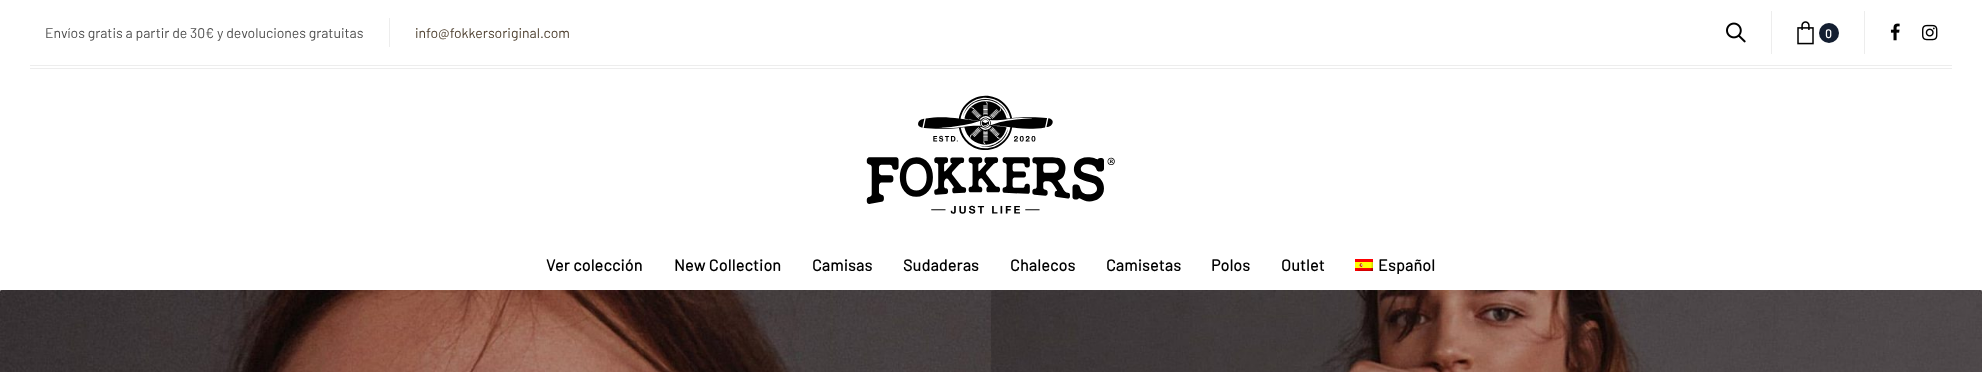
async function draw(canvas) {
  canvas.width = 1982
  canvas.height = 372
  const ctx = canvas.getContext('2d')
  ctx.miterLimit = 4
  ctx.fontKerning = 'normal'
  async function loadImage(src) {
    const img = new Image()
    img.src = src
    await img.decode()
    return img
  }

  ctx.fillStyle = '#fff'
  ctx.fillRect(0, 0, 1982, 372)
  ctx.fillStyle = '#ededed'
  ctx.fillRect(30, 65, 1922, 1)
  ctx.font = '14px Barlow'
  ctx.fillStyle = '#4f4f4f'
  ctx.fillText('Envíos gratis a partir de 30€ y devoluciones gratuitas', 45, 38)
  ctx.fillStyle = '#ededed'
  ctx.fillRect(389, 18, 1, 29)
  ctx.fillStyle = '#4f4130'
  ctx.fillText('info@fokkersoriginal.com', 415, 38)
  ctx.drawImage(await loadImage('image0.png'), 1726, 22, 20, 21)
  ctx.fillStyle = '#ededed'
  ctx.fillRect(1771, 11, 1, 43)
  ctx.drawImage(await loadImage('image1.png'), 1797, 21, 17, 24)
  ctx.fillStyle = '#131e30'
  ctx.beginPath()
  ctx.arc(1829, 33, 10, 0, 2 * Math.PI)
  ctx.fill()
  ctx.font = 'bold 12px Barlow'
  ctx.fillStyle = '#fff'
  ctx.fillText('0', 1825, 38)
  ctx.fillStyle = '#ededed'
  ctx.fillRect(1864, 11, 1, 43)
  ctx.drawImage(await loadImage('image2.png'), 1890, 23, 10, 18)
  ctx.drawImage(await loadImage('image3.png'), 1922, 24, 16, 17)
  ctx.fillRect(30, 68, 1922, 1)
  ctx.drawImage(await loadImage('image4.png'), 866, 95, 249, 119)
  ctx.letterSpacing = '0.25px'
  ctx.font = 'bold 16px Barlow'
  ctx.fillStyle = '#000'
  ctx.fillText('Ver colección', 546, 271)
  ctx.fillText('New Collection', 674, 271)
  ctx.fillText('Camisas', 812, 271)
  ctx.fillText('Sudaderas', 903, 271)
  ctx.fillText('Chalecos', 1010, 271)
  ctx.fillText('Camisetas', 1106, 271)
  ctx.fillText('Polos', 1211, 271)
  ctx.fillText('Outlet', 1281, 271)
  ctx.drawImage(await loadImage('image5.png'), 1355, 259, 18, 12)
  ctx.fillText('Español', 1378, 271)
  ctx.drawImage(await loadImage('image6.png'), 0, 290, 1982, 82)
}

draw(document.querySelector('canvas'))
